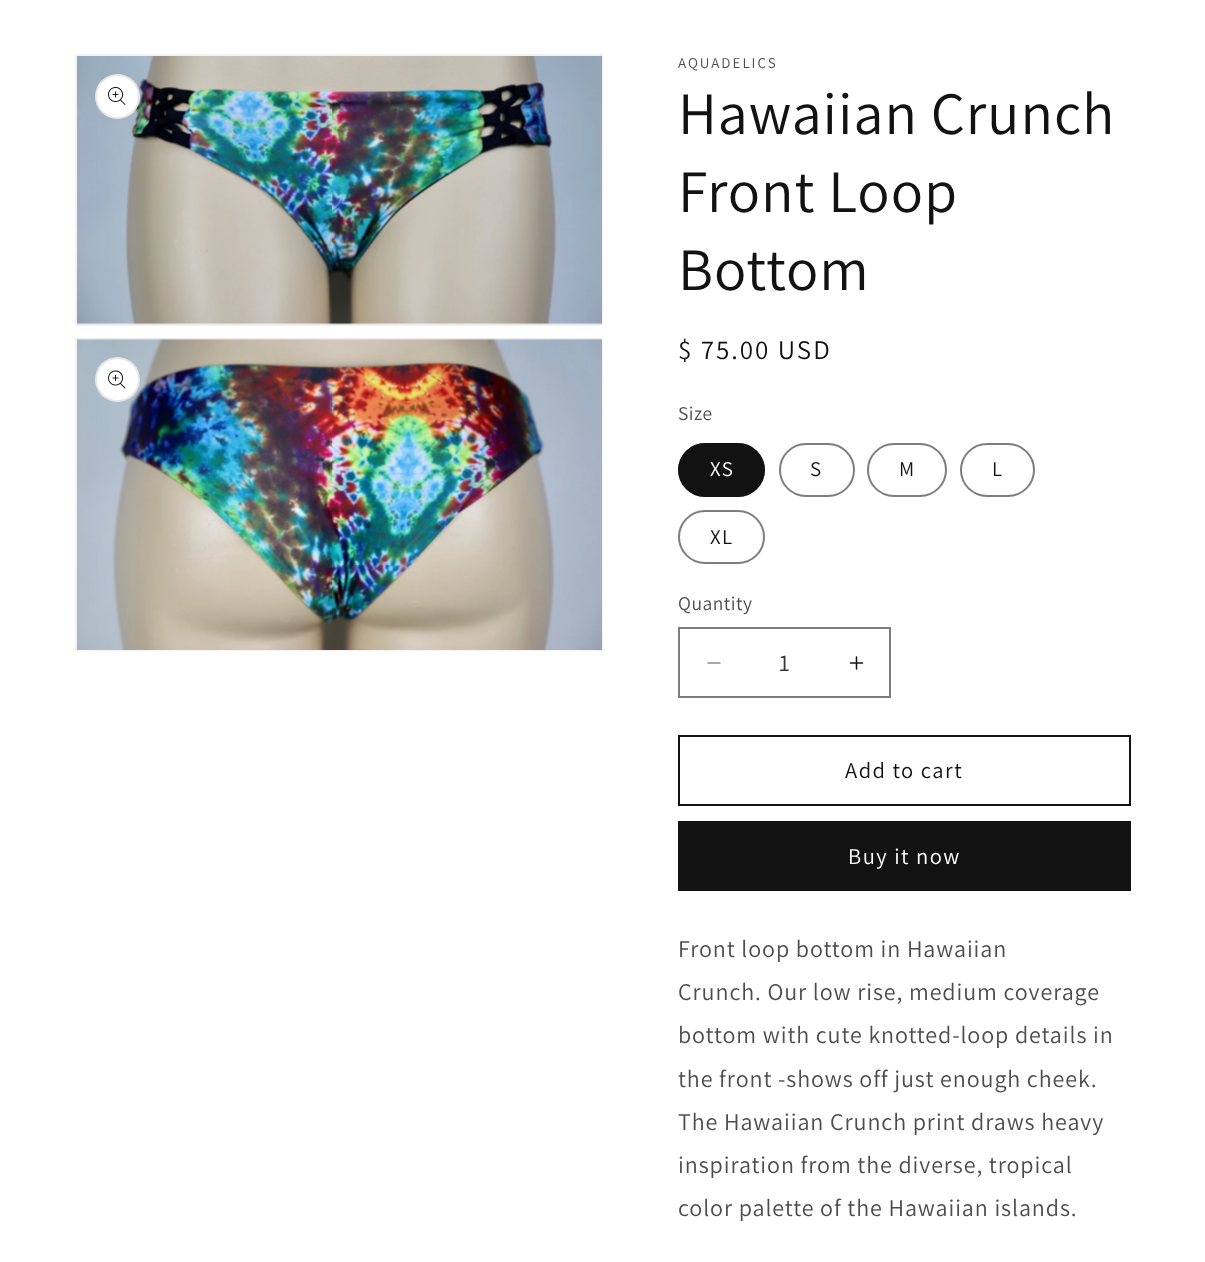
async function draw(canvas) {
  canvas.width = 1205
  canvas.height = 1262
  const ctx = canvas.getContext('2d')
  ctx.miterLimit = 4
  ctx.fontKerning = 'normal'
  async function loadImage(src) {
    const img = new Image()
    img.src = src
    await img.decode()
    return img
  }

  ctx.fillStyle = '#fff'
  ctx.fillRect(0, 0, 1205, 1262)
  ctx.strokeStyle = '#f3f3f3'
  ctx.lineWidth = 2
  ctx.strokeRect(76, 55, 526, 270)
  ctx.drawImage(await loadImage('image0.png'), 77, 56, 525, 269)
  ctx.beginPath()
  ctx.arc(117.5, 96.5, 22.5, 0, 2 * Math.PI)
  ctx.fill()
  ctx.beginPath()
  ctx.arc(117.5, 96.5, 21.5, 0, 2 * Math.PI)
  ctx.strokeStyle = '#1212121a'
  ctx.stroke()
  ctx.drawImage(await loadImage('image1.png'), 108, 87, 18, 18)
  ctx.strokeStyle = '#f3f3f3'
  ctx.strokeRect(76, 339, 526, 311)
  ctx.drawImage(await loadImage('image2.png'), 77, 338, 525, 312)
  ctx.beginPath()
  ctx.arc(117.5, 379.5, 22.5, 0, 2 * Math.PI)
  ctx.fill()
  ctx.beginPath()
  ctx.arc(117.5, 379.5, 21.5, 0, 2 * Math.PI)
  ctx.strokeStyle = '#1212121a'
  ctx.stroke()
  ctx.drawImage(await loadImage('image3.png'), 108, 370, 18, 19)
  ctx.letterSpacing = '2px'
  ctx.font = '15px Assistant'
  ctx.fillStyle = '#4d4d4d'
  ctx.fillText('AQUADELICS', 678, 68)
  ctx.letterSpacing = '0.9px'
  ctx.font = '60px Assistant'
  ctx.fillStyle = '#121212'
  ctx.fillText('Hawaiian Crunch', 678, 134)
  ctx.fillText('Front Loop', 678, 212)
  ctx.fillText('Bottom', 678, 290)
  ctx.letterSpacing = '2px'
  ctx.font = '27px Assistant'
  ctx.fillText('$ 75.00 USD', 678, 359)
  ctx.letterSpacing = '0.5px'
  ctx.font = '19.5px Assistant'
  ctx.fillStyle = '#4d4d4d'
  ctx.fillText('Size', 678, 420)
  ctx.fillStyle = '#121212'
  ctx.beginPath()
  ctx.roundRect(678, 443, 87, 54, 27)
  ctx.fill()
  ctx.beginPath()
  ctx.roundRect(679, 444, 85, 52, 26)
  ctx.strokeStyle = '#1212128c'
  ctx.stroke()
  ctx.letterSpacing = '1.5px'
  ctx.font = '21px Assistant'
  ctx.fillStyle = '#fff'
  ctx.fillText('XS', 710, 476)
  ctx.beginPath()
  ctx.roundRect(780, 444, 74, 52, 26)
  ctx.strokeStyle = '#7d7d7d'
  ctx.stroke()
  ctx.fillStyle = '#121212'
  ctx.fillText('S', 810, 476)
  ctx.beginPath()
  ctx.roundRect(868, 444, 78, 52, 26)
  ctx.stroke()
  ctx.fillText('M', 899, 476)
  ctx.beginPath()
  ctx.roundRect(961, 444, 73, 52, 26)
  ctx.stroke()
  ctx.fillText('L', 992, 476)
  ctx.beginPath()
  ctx.roundRect(679, 511, 85, 52, 26)
  ctx.stroke()
  ctx.fillText('XL', 710, 544)
  ctx.letterSpacing = '0.5px'
  ctx.font = '19.5px Assistant'
  ctx.fillStyle = '#4d4d4d'
  ctx.fillText('Quantity', 678, 610)
  ctx.drawImage(await loadImage('image4.png'), 707, 662, 14, 2)
  ctx.drawImage(await loadImage('image5.png'), 849, 656, 15, 14)
  ctx.strokeRect(679, 628, 211, 69)
  ctx.letterSpacing = '0px'
  ctx.font = '24px Assistant'
  ctx.fillStyle = '#363636'
  ctx.fillText('1', 779, 671)
  ctx.strokeStyle = '#121212'
  ctx.strokeRect(679, 736, 451, 69)
  ctx.letterSpacing = '1.5px'
  ctx.font = '22.5px Assistant'
  ctx.fillStyle = '#121212'
  ctx.fillText('Add to cart', 845, 778)
  ctx.fillRect(678, 821, 453, 70)
  ctx.fillStyle = '#fff'
  ctx.fillText('Buy it now', 848, 864)
  ctx.letterSpacing = '0.9px'
  ctx.font = '24px Assistant'
  ctx.fillStyle = '#4d4d4d'
  ctx.fillText('Front loop bottom in Hawaiian', 678, 957)
  ctx.fillText('Crunch. Our low rise, medium coverage', 678, 1000)
  ctx.fillText('bottom with cute knotted-loop details in', 678, 1043)
  ctx.fillText('the front -shows off just enough cheek.', 678, 1087)
  ctx.fillText('The Hawaiian Crunch print draws heavy', 678, 1130)
  ctx.fillText('inspiration from the diverse, tropical', 678, 1173)
  ctx.fillText('color palette of the Hawaiian islands.', 678, 1216)
}

draw(document.querySelector('canvas'))
